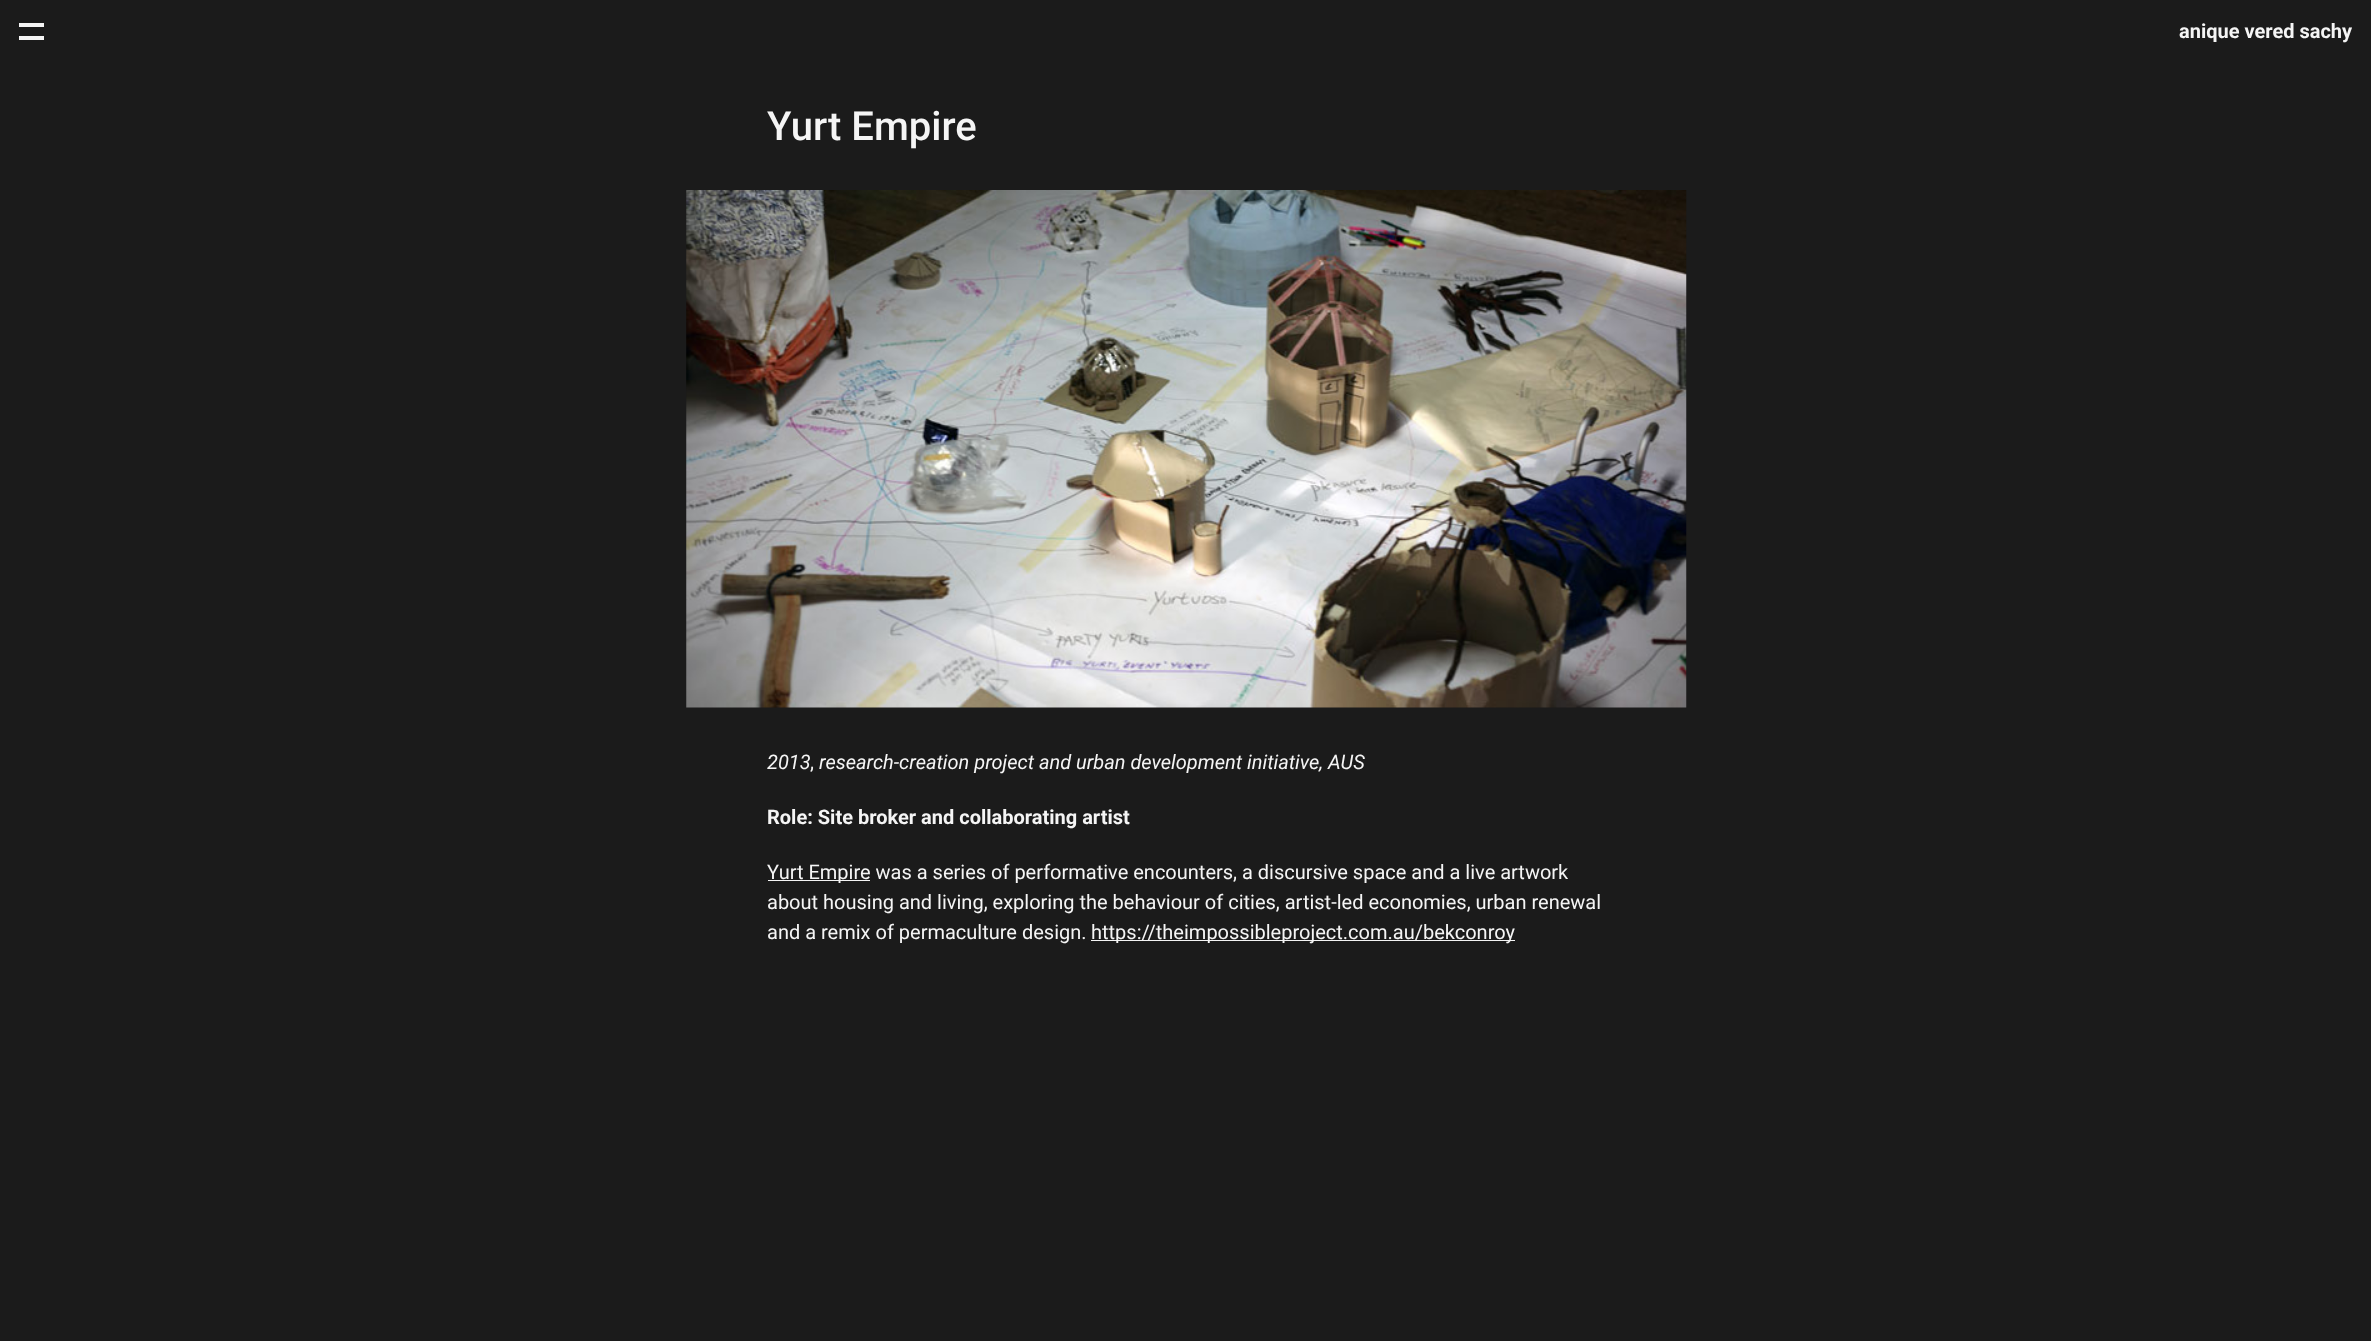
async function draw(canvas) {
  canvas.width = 2371
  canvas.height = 1341
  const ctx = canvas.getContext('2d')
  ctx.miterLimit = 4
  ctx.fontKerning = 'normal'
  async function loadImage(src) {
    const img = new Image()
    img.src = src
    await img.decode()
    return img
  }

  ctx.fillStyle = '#1b1b1b'
  ctx.fillRect(0, 0, 2371, 1341)
  ctx.fillStyle = '#f5f5f5'
  ctx.fillRect(19, 23, 25, 4)
  ctx.fillRect(19, 36, 25, 4)
  ctx.font = 'bold 20px Roboto'
  ctx.fillText('anique vered sachy', 2179, 38)
  ctx.font = '500 40px Roboto'
  ctx.fillText('Yurt Empire', 767, 140)
  ctx.drawImage(await loadImage('image0.png'), 686, 190, 1001, 518)
  ctx.font = 'italic 20px Roboto'
  ctx.fillText('2013', 767, 769)
  ctx.font = '20px Roboto'
  ctx.fillText(',', 810, 769)
  ctx.font = 'italic 20px Roboto'
  ctx.fillText('research-creation project and urban development initiative, AUS', 819, 769)
  ctx.font = 'bold 20px Roboto'
  ctx.fillText('Role: Site broker and collaborating artist', 767, 824)
  ctx.fillRect(768, 880, 102, 1)
  ctx.font = '20px Roboto'
  ctx.fillText('Yurt Empire was a series of performative encounters, a discursive space and a live artwork', 767, 879)
  ctx.fillText('about housing and living, exploring the behaviour of cities, artist-led economies, urban renewal', 767, 909)
  ctx.fillText('and a remix of permaculture design.', 767, 939)
  ctx.fillRect(1091, 940, 424, 1)
  ctx.fillText('https://theimpossibleproject.com.au/bekconroy', 1091, 939)
}

draw(document.querySelector('canvas'))
